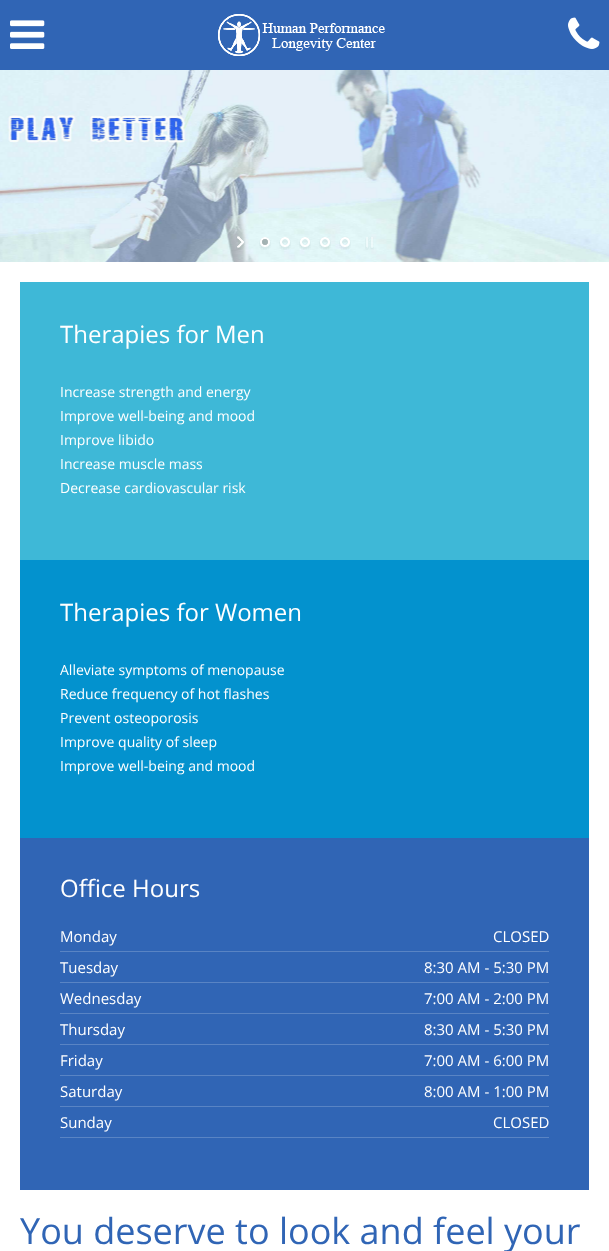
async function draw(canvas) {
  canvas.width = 609
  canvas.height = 1251
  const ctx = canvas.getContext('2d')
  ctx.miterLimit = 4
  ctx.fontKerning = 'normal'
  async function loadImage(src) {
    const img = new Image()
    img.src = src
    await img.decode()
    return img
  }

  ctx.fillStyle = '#fff'
  ctx.fillRect(0, 0, 609, 1251)
  ctx.fillStyle = '#3065b5'
  ctx.fillRect(0, 0, 609, 70)
  ctx.drawImage(await loadImage('image0.png'), 10, 20, 35, 29)
  ctx.drawImage(await loadImage('image1.png'), 218, 14, 167, 42)
  ctx.drawImage(await loadImage('image2.png'), 568, 17, 32, 32)
  ctx.drawImage(await loadImage('image3.png'), 0, 70, 609, 192)
  ctx.drawImage(await loadImage('image4.png'), 236, 236, 9, 14)
  ctx.drawImage(await loadImage('image5.png'), 259, 237, 12, 13)
  ctx.drawImage(await loadImage('image6.png'), 279, 237, 12, 13)
  ctx.drawImage(await loadImage('image7.png'), 299, 237, 12, 13)
  ctx.drawImage(await loadImage('image8.png'), 319, 237, 12, 13)
  ctx.drawImage(await loadImage('image9.png'), 339, 237, 12, 13)
  ctx.drawImage(await loadImage('image10.png'), 365, 237, 9, 13)
  ctx.fillStyle = '#3eb8d7'
  ctx.fillRect(20, 282, 569, 278)
  ctx.font = '24px Open Sans'
  ctx.fillStyle = '#fff'
  ctx.fillText('Therapies for Men', 60, 343)
  ctx.font = '14px Open Sans'
  ctx.fillText('Increase strength and energy', 60, 397)
  ctx.fillText('Improve well-being and mood', 60, 421)
  ctx.fillText('Improve libido', 60, 445)
  ctx.fillText('Increase muscle mass', 60, 469)
  ctx.fillText('Decrease cardiovascular risk', 60, 493)
  ctx.fillStyle = '#0392ce'
  ctx.fillRect(20, 560, 569, 278)
  ctx.font = '24px Open Sans'
  ctx.fillStyle = '#fff'
  ctx.fillText('Therapies for Women', 60, 621)
  ctx.font = '14px Open Sans'
  ctx.fillText('Alleviate symptoms of menopause', 60, 675)
  ctx.fillText('Reduce frequency of hot flashes', 60, 699)
  ctx.fillText('Prevent osteoporosis', 60, 723)
  ctx.fillText('Improve quality of sleep', 60, 747)
  ctx.fillText('Improve well-being and mood', 60, 771)
  ctx.fillStyle = '#3065b5'
  ctx.fillRect(20, 838, 569, 352)
  ctx.font = '24px Open Sans'
  ctx.fillStyle = '#fff'
  ctx.fillText('Office Hours', 60, 897)
  ctx.fillStyle = '#5984c4'
  ctx.fillRect(60, 951, 489, 1)
  ctx.font = '15px Open Sans'
  ctx.fillStyle = '#fff'
  ctx.fillText('Monday', 60, 942)
  ctx.fillText('CLOSED', 493, 942)
  ctx.fillStyle = '#5984c4'
  ctx.fillRect(60, 982, 489, 1)
  ctx.fillStyle = '#fff'
  ctx.fillText('Tuesday', 60, 973)
  ctx.fillText('8:30 AM - 5:30 PM', 424, 973)
  ctx.fillStyle = '#5984c4'
  ctx.fillRect(60, 1013, 489, 1)
  ctx.fillStyle = '#fff'
  ctx.fillText('Wednesday', 60, 1004)
  ctx.fillText('7:00 AM - 2:00 PM', 424, 1004)
  ctx.fillStyle = '#5984c4'
  ctx.fillRect(60, 1044, 489, 1)
  ctx.fillStyle = '#fff'
  ctx.fillText('Thursday', 60, 1035)
  ctx.fillText('8:30 AM - 5:30 PM', 424, 1035)
  ctx.fillStyle = '#5984c4'
  ctx.fillRect(60, 1075, 489, 1)
  ctx.fillStyle = '#fff'
  ctx.fillText('Friday', 60, 1066)
  ctx.fillText('7:00 AM - 6:00 PM', 424, 1066)
  ctx.fillStyle = '#5984c4'
  ctx.fillRect(60, 1106, 489, 1)
  ctx.fillStyle = '#fff'
  ctx.fillText('Saturday', 60, 1097)
  ctx.fillText('8:00 AM - 1:00 PM', 424, 1097)
  ctx.fillStyle = '#5984c4'
  ctx.fillRect(60, 1137, 489, 1)
  ctx.fillStyle = '#fff'
  ctx.fillText('Sunday', 60, 1128)
  ctx.fillText('CLOSED', 493, 1128)
  ctx.font = '36px Open Sans'
  ctx.fillStyle = '#3065b5'
  ctx.fillText('You deserve to look and feel your', 20, 1244)
}

draw(document.querySelector('canvas'))
